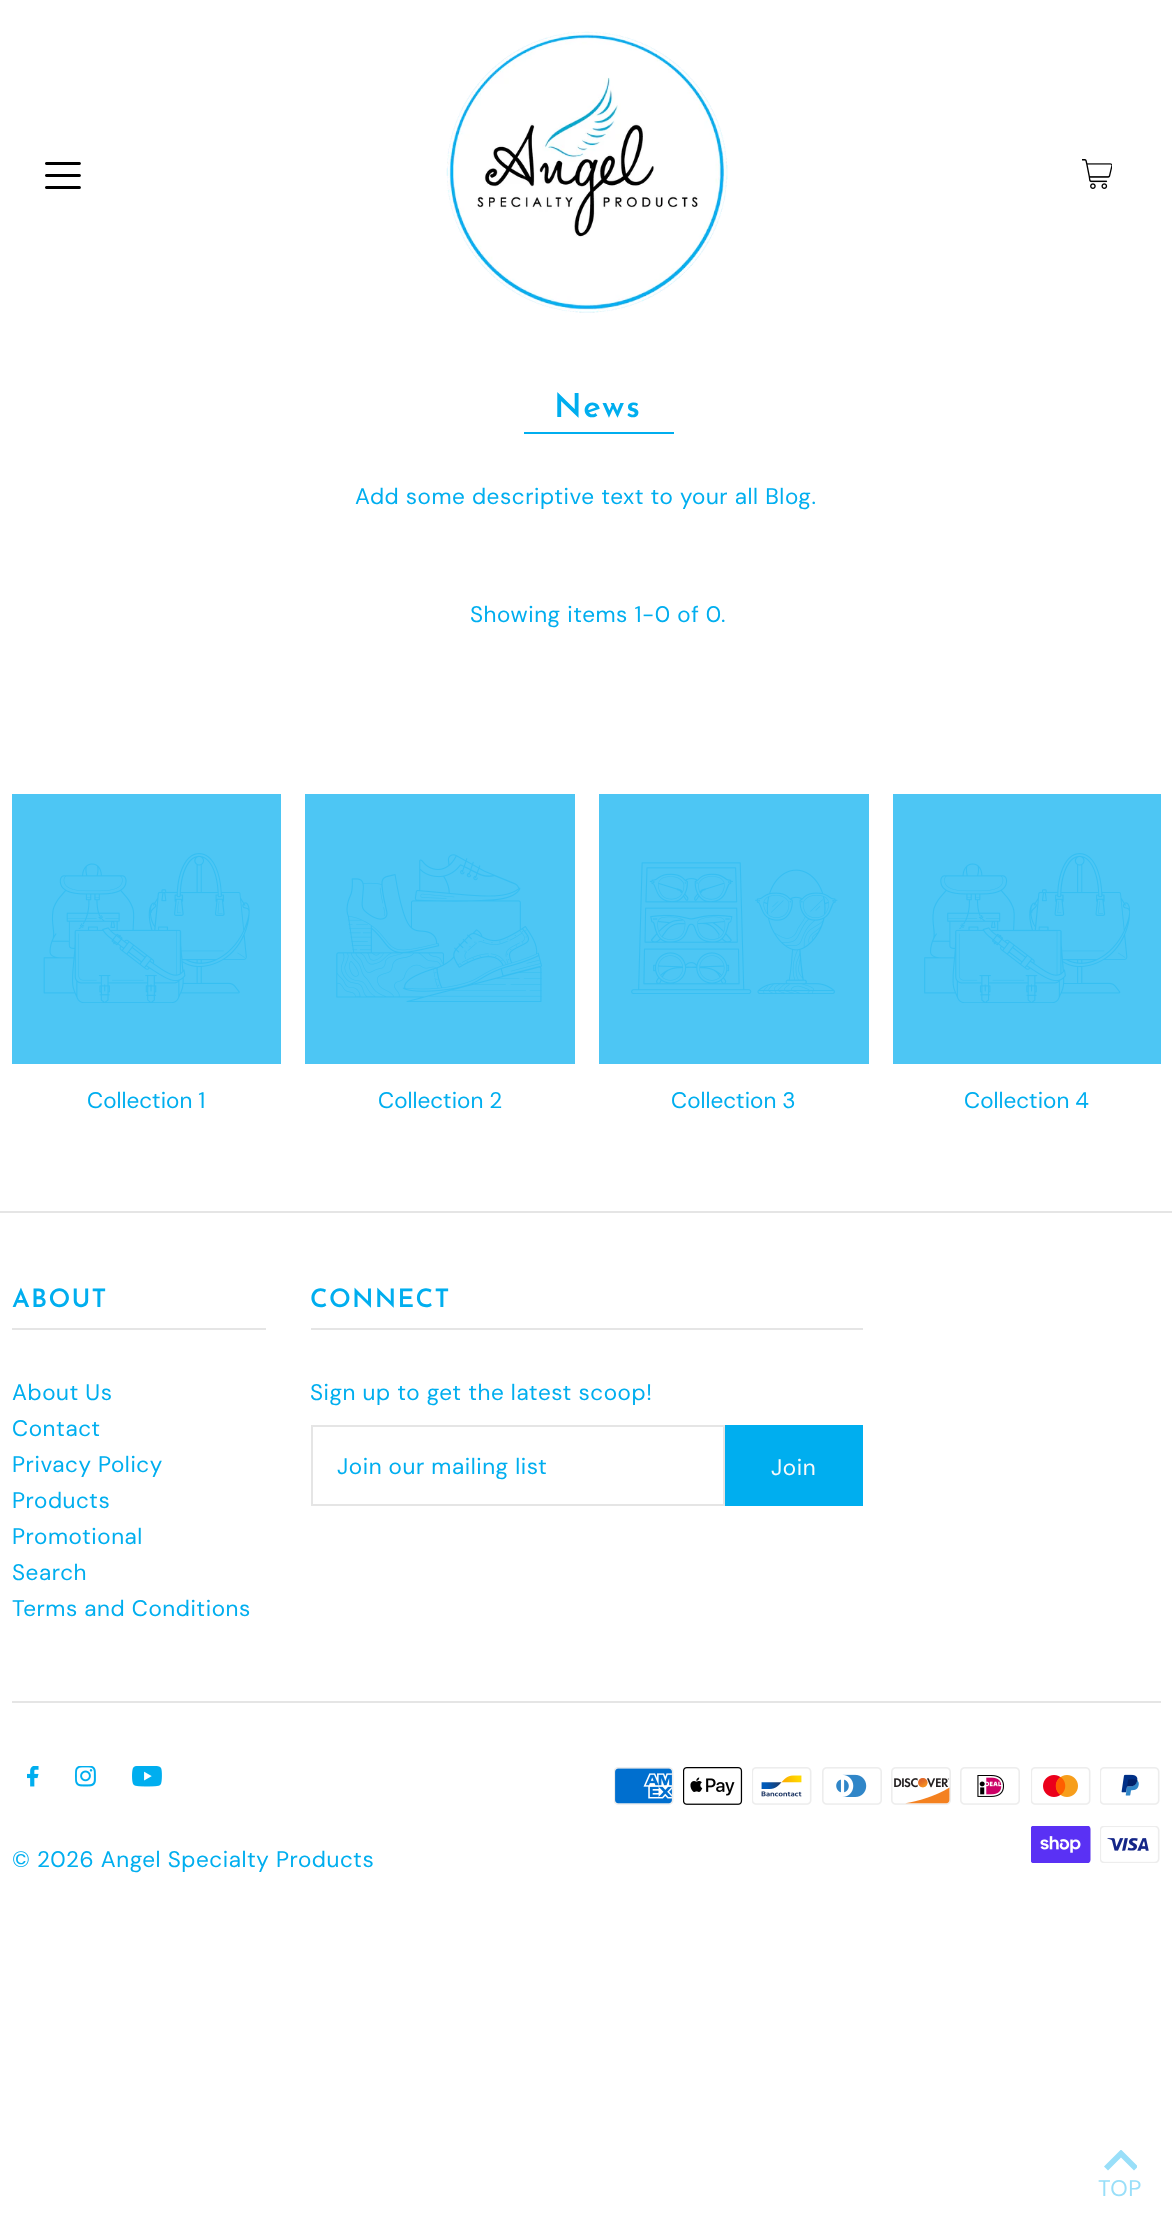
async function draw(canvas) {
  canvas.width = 1172
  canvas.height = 2238
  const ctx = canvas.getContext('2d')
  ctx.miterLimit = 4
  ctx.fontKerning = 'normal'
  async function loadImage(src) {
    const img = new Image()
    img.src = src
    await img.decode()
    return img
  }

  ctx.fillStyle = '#fff'
  ctx.fillRect(0, 0, 1172, 2238)
  ctx.drawImage(await loadImage('image0.png'), 45, 162, 36, 27)
  ctx.drawImage(await loadImage('image1.png'), 446, 31, 282, 282)
  ctx.drawImage(await loadImage('image2.png'), 1082, 159, 30, 30)
  ctx.letterSpacing = '1.5px'
  ctx.font = '600 33px Josefin Sans'
  ctx.fillStyle = '#00aeef'
  ctx.fillText('News', 554, 417)
  ctx.fillRect(524, 432, 150, 2)
  ctx.letterSpacing = '0.55px'
  ctx.font = '22.5px DM Sans'
  ctx.fillText('Add some descriptive text to your all Blog.', 355, 504)
  ctx.fillText('Showing items 1-0 of 0.', 470, 622)
  ctx.fillStyle = '#4dc6f4'
  ctx.fillRect(12, 794, 269, 270)
  ctx.drawImage(await loadImage('image3.png'), 43, 853, 207, 150)
  ctx.letterSpacing = '0px'
  ctx.fillStyle = '#00aeef'
  ctx.fillText('Collection 1', 87, 1108)
  ctx.fillStyle = '#4dc6f4'
  ctx.fillRect(305, 794, 270, 270)
  ctx.drawImage(await loadImage('image4.png'), 336, 854, 206, 148)
  ctx.fillStyle = '#00aeef'
  ctx.fillText('Collection 2', 378, 1108)
  ctx.fillStyle = '#4dc6f4'
  ctx.fillRect(599, 794, 270, 270)
  ctx.drawImage(await loadImage('image5.png'), 631, 862, 207, 132)
  ctx.fillStyle = '#00aeef'
  ctx.fillText('Collection 3', 671, 1108)
  ctx.fillStyle = '#4dc6f4'
  ctx.fillRect(893, 794, 268, 270)
  ctx.drawImage(await loadImage('image6.png'), 924, 853, 206, 150)
  ctx.fillStyle = '#00aeef'
  ctx.fillText('Collection 4', 964, 1108)
  ctx.fillStyle = '#e5e5e5'
  ctx.fillRect(0, 1211, 1172, 2)
  ctx.fillRect(12, 1328, 254, 2)
  ctx.letterSpacing = '1.25px'
  ctx.font = '600 25.5px Josefin Sans'
  ctx.fillStyle = '#00aeef'
  ctx.fillText('ABOUT', 12, 1307)
  ctx.letterSpacing = '0.55px'
  ctx.font = '22.5px DM Sans'
  ctx.fillText('About Us', 12, 1400)
  ctx.fillText('Contact', 12, 1436)
  ctx.fillText('Privacy Policy', 12, 1472)
  ctx.fillText('Products', 12, 1508)
  ctx.fillText('Promotional', 12, 1544)
  ctx.fillText('Search', 12, 1580)
  ctx.fillText('Terms and Conditions', 12, 1616)
  ctx.fillStyle = '#e5e5e5'
  ctx.fillRect(311, 1328, 552, 2)
  ctx.letterSpacing = '1.25px'
  ctx.font = '600 25.5px Josefin Sans'
  ctx.fillStyle = '#00aeef'
  ctx.fillText('CONNECT', 310, 1307)
  ctx.letterSpacing = '0.55px'
  ctx.font = '22.5px DM Sans'
  ctx.fillText('Sign up to get the latest scoop!', 310, 1400)
  ctx.strokeStyle = '#e5e5e5'
  ctx.lineWidth = 2
  ctx.strokeRect(312, 1426, 412, 79)
  ctx.fillText('Join our mailing list', 337, 1474)
  ctx.fillRect(725, 1425, 138, 81)
  ctx.fillStyle = '#fafafa'
  ctx.fillText('Join', 771, 1475)
  ctx.fillStyle = '#e5e5e5'
  ctx.fillRect(12, 1701, 1149, 2)
  ctx.drawImage(await loadImage('image7.png'), 27, 1766, 12, 21)
  ctx.drawImage(await loadImage('image8.png'), 75, 1766, 21, 21)
  ctx.drawImage(await loadImage('image9.png'), 132, 1766, 30, 21)
  ctx.fillStyle = '#00aeef'
  ctx.fillText('© 2026 Angel Specialty Products', 12, 1867)
  ctx.drawImage(await loadImage('image10.png'), 614, 1767, 60, 38)
  ctx.drawImage(await loadImage('image11.png'), 683, 1767, 60, 38)
  ctx.drawImage(await loadImage('image12.png'), 752, 1767, 60, 38)
  ctx.drawImage(await loadImage('image13.png'), 822, 1767, 60, 38)
  ctx.drawImage(await loadImage('image14.png'), 891, 1767, 60, 38)
  ctx.drawImage(await loadImage('image15.png'), 960, 1767, 60, 38)
  ctx.drawImage(await loadImage('image16.png'), 1031, 1767, 60, 38)
  ctx.drawImage(await loadImage('image17.png'), 1100, 1767, 60, 38)
  ctx.drawImage(await loadImage('image18.png'), 1031, 1826, 60, 37)
  ctx.drawImage(await loadImage('image19.png'), 1100, 1826, 60, 37)
  ctx.save()
  ctx.beginPath()
  ctx.rect(1104, 2150, 33, 21)
  ctx.clip()
  ctx.fillStyle = '#99dff9'
  ctx.beginPath()
  ctx.moveTo(1121, 2149.5)
  ctx.lineTo(1104, 2166.5)
  ctx.lineTo(1108, 2170.5)
  ctx.lineTo(1121, 2157.5)
  ctx.lineTo(1134, 2170.5)
  ctx.lineTo(1138, 2166.5)
  ctx.closePath()
  ctx.fill()
  ctx.restore()
  ctx.fillStyle = '#99dff9'
  ctx.fillText('TOP', 1098, 2196)
}

draw(document.querySelector('canvas'))
